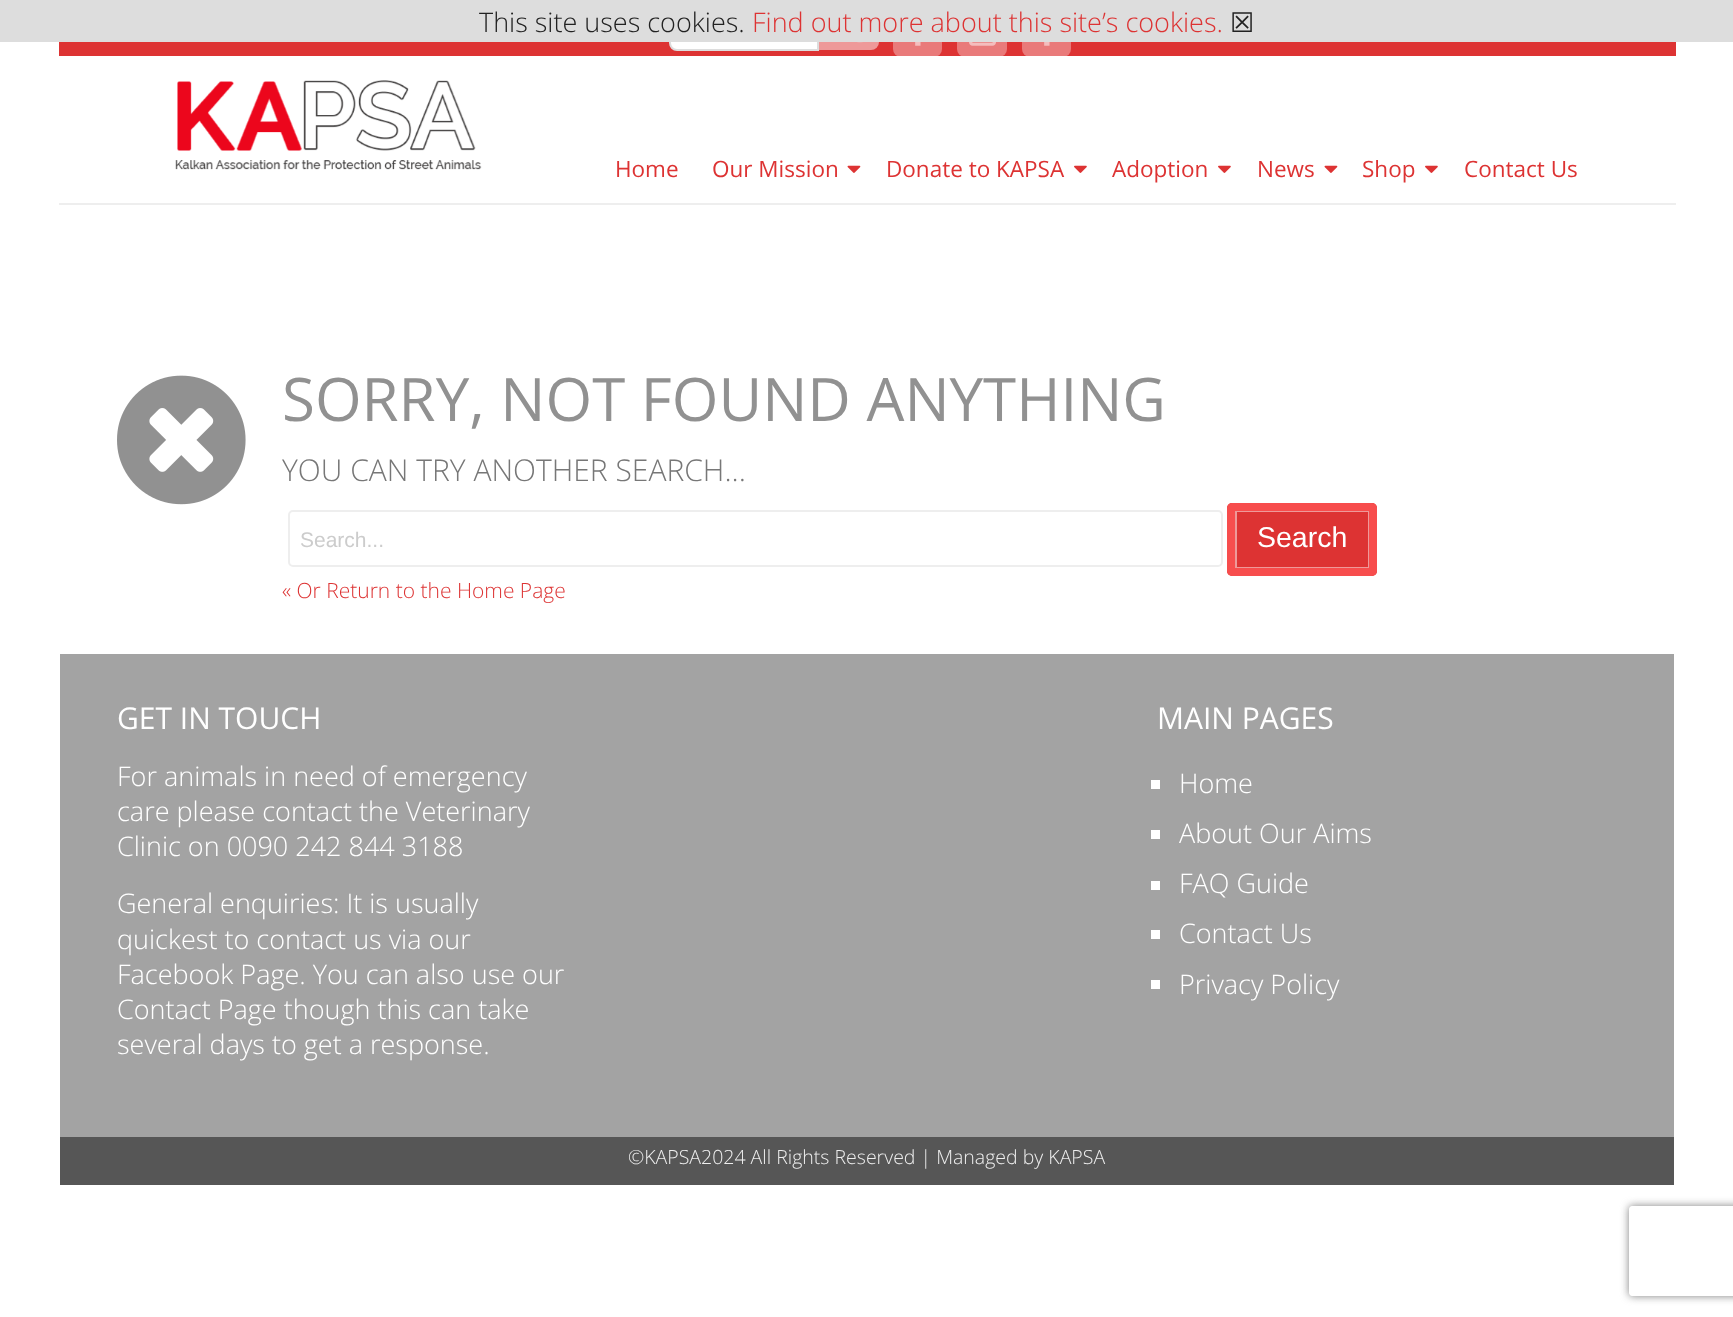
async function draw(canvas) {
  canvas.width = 1733
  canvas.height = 1317
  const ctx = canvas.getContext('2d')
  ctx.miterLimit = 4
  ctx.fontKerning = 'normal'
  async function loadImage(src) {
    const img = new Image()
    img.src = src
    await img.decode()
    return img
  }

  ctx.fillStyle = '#fff'
  ctx.fillRect(0, 0, 1733, 1317)
  ctx.fillStyle = '#d33'
  ctx.fillRect(59, 42, 1617, 14)
  ctx.fillStyle = '#fff'
  ctx.beginPath()
  ctx.roundRect(670, 10, 148, 40, [7, 0, 0, 7])
  ctx.fill()
  ctx.strokeStyle = '#ddd'
  ctx.lineWidth = 2
  ctx.stroke()
  ctx.fillStyle = '#e99'
  ctx.beginPath()
  ctx.roundRect(819, 11, 60, 39, [0, 8, 8, 0])
  ctx.fill()
  ctx.fillStyle = '#ffffff59'
  ctx.beginPath()
  ctx.roundRect(893, 8, 49, 49, 8)
  ctx.fill()
  ctx.beginPath()
  ctx.roundRect(957, 8, 50, 49, 8)
  ctx.fill()
  ctx.beginPath()
  ctx.roundRect(1022, 8, 49, 49, 8)
  ctx.fill()
  ctx.fillStyle = '#ddd'
  ctx.fillRect(0, 0, 1733, 42)
  ctx.font = '300 27px Open Sans'
  ctx.fillStyle = '#222'
  ctx.fillText('This site uses cookies.', 479, 32)
  ctx.fillStyle = '#d33'
  ctx.fillText('Find out more about this site’s cookies.', 752, 32)
  ctx.font = '27px DejaVu Sans'
  ctx.fillStyle = '#222'
  ctx.fillText('☒', 1230, 32)
  ctx.drawImage(await loadImage('image0.png'), 857, 42, 6, 1)
  ctx.drawImage(await loadImage('image1.png'), 915, 42, 6, 4)
  ctx.drawImage(await loadImage('image2.png'), 969, 42, 27, 4)
  ctx.drawImage(await loadImage('image1.png'), 1044, 42, 6, 4)
  ctx.fillStyle = '#eee'
  ctx.fillRect(59, 203, 1617, 2)
  ctx.drawImage(await loadImage('image3.png'), 175, 80, 307, 90)
  ctx.font = '22.5px Open Sans'
  ctx.fillStyle = '#d33'
  ctx.fillText('Home', 615, 177)
  ctx.fillText('Our Mission', 712, 177)
  ctx.drawImage(await loadImage('image4.png'), 847, 165, 14, 8)
  ctx.fillText('Donate to KAPSA', 886, 177)
  ctx.drawImage(await loadImage('image5.png'), 1074, 165, 13, 8)
  ctx.fillText('Adoption', 1112, 177)
  ctx.drawImage(await loadImage('image5.png'), 1218, 165, 13, 8)
  ctx.fillText('News', 1257, 177)
  ctx.drawImage(await loadImage('image4.png'), 1324, 165, 14, 8)
  ctx.fillText('Shop', 1362, 177)
  ctx.drawImage(await loadImage('image5.png'), 1425, 165, 13, 8)
  ctx.fillText('Contact Us', 1464, 177)
  ctx.drawImage(await loadImage('image6.png'), 117, 375, 129, 130)
  ctx.font = '60px Open Sans'
  ctx.fillStyle = '#919191'
  ctx.fillText('SORRY, NOT FOUND ANYTHING', 282, 421)
  ctx.font = '300 30px Open Sans'
  ctx.fillStyle = '#777'
  ctx.fillText('YOU CAN TRY ANOTHER SEARCH...', 282, 481)
  ctx.beginPath()
  ctx.roundRect(289, 511, 933, 55, 4)
  ctx.strokeStyle = '#eee'
  ctx.stroke()
  ctx.font = '21px Liberation Sans'
  ctx.fillStyle = '#ccc'
  ctx.fillText('Search...', 300, 547)
  ctx.fillStyle = '#d33'
  ctx.beginPath()
  ctx.roundRect(1227, 503, 150, 73, 5)
  ctx.fill()
  ctx.strokeStyle = '#e99'
  ctx.strokeRect(1236, 511, 133, 57)
  ctx.beginPath()
  ctx.roundRect(1231, 507, 142, 65, 1)
  ctx.strokeStyle = '#f74d4d'
  ctx.lineWidth = 8
  ctx.stroke()
  ctx.font = '28.5px Liberation Sans'
  ctx.fillStyle = '#fff'
  ctx.fillText('Search', 1257, 547)
  ctx.font = '300 21px Open Sans'
  ctx.fillStyle = '#d33'
  ctx.fillText('« Or Return to the Home Page', 282, 598)
  ctx.fillStyle = '#a3a3a3'
  ctx.fillRect(60, 654, 1614, 483)
  ctx.font = '30px Open Sans'
  ctx.fillStyle = '#fff'
  ctx.fillText('GET IN TOUCH', 117, 729)
  ctx.font = '300 27px Open Sans'
  ctx.fillText('For animals in need of emergency', 117, 786)
  ctx.fillText('care please contact the Veterinary', 117, 821)
  ctx.fillText('Clinic on 0090 242 844 3188', 117, 856)
  ctx.fillText('General enquiries: It is usually', 117, 913)
  ctx.fillText('quickest to contact us via our', 117, 949)
  ctx.fillText('Facebook Page. You can also use our', 117, 984)
  ctx.fillText('Contact Page though this can take', 117, 1019)
  ctx.fillText('several days to get a response.', 117, 1054)
  ctx.font = '30px Open Sans'
  ctx.fillText('MAIN PAGES', 1157, 729)
  ctx.fillRect(1151, 780, 9, 9)
  ctx.font = '300 27px Open Sans'
  ctx.fillText('Home', 1179, 793)
  ctx.fillRect(1151, 830, 9, 9)
  ctx.fillText('About Our Aims', 1179, 843)
  ctx.fillRect(1151, 881, 9, 9)
  ctx.fillText('FAQ Guide', 1179, 893)
  ctx.fillRect(1151, 930, 9, 9)
  ctx.fillText('Contact Us', 1179, 943)
  ctx.fillRect(1151, 980, 9, 9)
  ctx.fillText('Privacy Policy', 1179, 994)
  ctx.fillStyle = '#565656'
  ctx.fillRect(60, 1137, 1614, 48)
  ctx.font = '300 19.5px Open Sans'
  ctx.fillStyle = '#eee'
  ctx.fillText('©KAPSA2024 All Rights Reserved | Managed by KAPSA', 628, 1164)
  ctx.save()
  ctx.beginPath()
  ctx.moveTo(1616, 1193)
  ctx.lineTo(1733, 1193)
  ctx.lineTo(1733, 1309)
  ctx.lineTo(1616, 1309)
  ctx.closePath()
  ctx.moveTo(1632, 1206)
  ctx.lineTo(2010, 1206)
  ctx.bezierCurveTo(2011.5, 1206, 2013, 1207.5, 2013, 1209)
  ctx.lineTo(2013, 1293)
  ctx.bezierCurveTo(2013, 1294.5, 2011.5, 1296, 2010, 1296)
  ctx.lineTo(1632, 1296)
  ctx.bezierCurveTo(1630.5, 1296, 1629, 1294.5, 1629, 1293)
  ctx.lineTo(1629, 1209)
  ctx.bezierCurveTo(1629, 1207.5, 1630.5, 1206, 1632, 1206)
  ctx.closePath()
  ctx.clip('evenodd')
  ctx.fillStyle = '#808080'
  ctx.filter = 'blur(4px)'
  ctx.beginPath()
  ctx.roundRect(1629, 1206, 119, 90, 3)
  ctx.fill()
  ctx.filter = 'none'
  ctx.restore()
}

draw(document.querySelector('canvas'))
